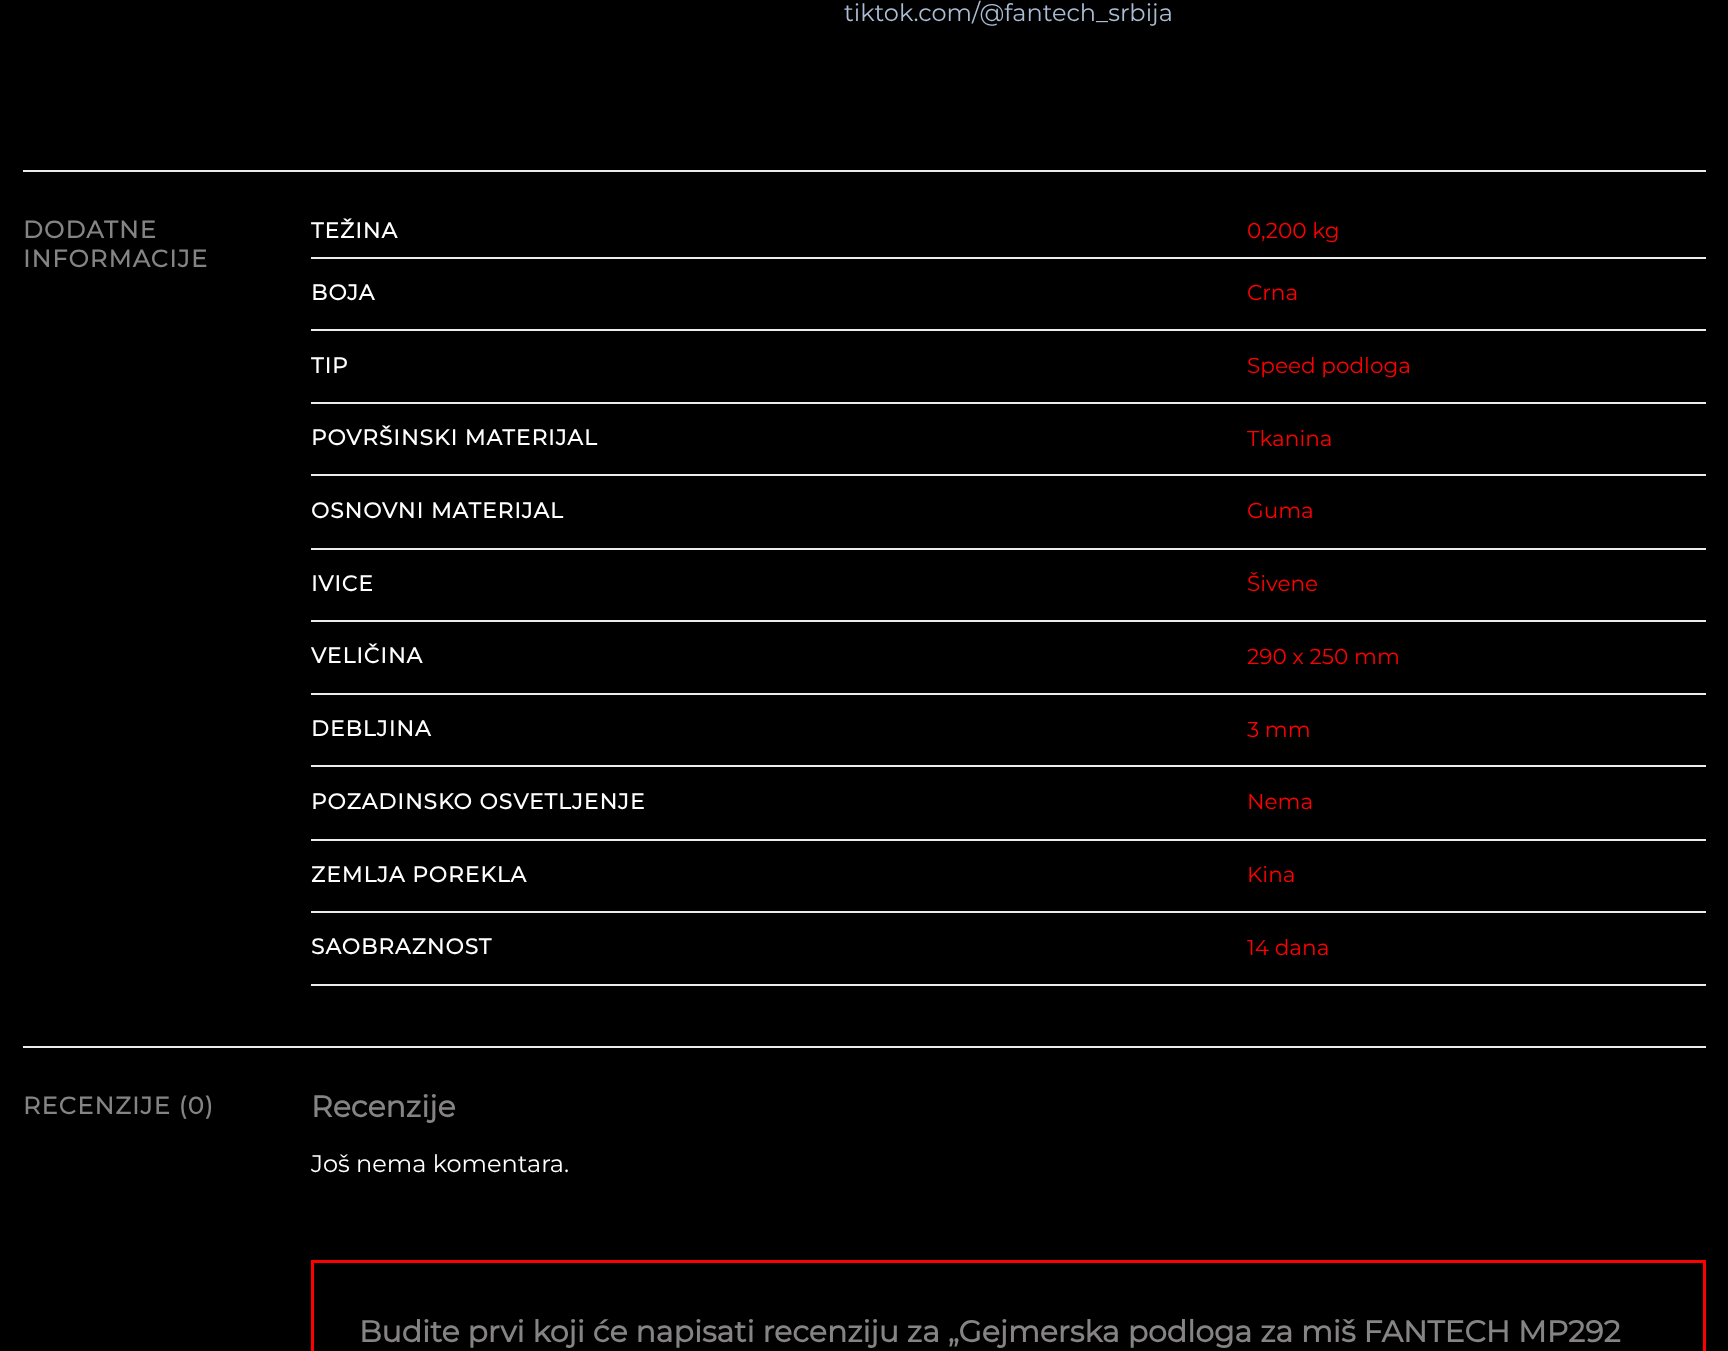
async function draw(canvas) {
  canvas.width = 1728
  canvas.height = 1351
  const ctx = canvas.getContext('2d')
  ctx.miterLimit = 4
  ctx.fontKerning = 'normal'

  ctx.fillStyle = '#000'
  ctx.fillRect(0, 0, 1728, 1351)
  ctx.font = '100 24px Montserrat'
  ctx.fillStyle = '#aabdd4'
  ctx.fillText('tiktok.com/@fantech_srbija', 844, 21)
  ctx.fillStyle = '#ececec'
  ctx.fillRect(23, 170, 1683, 2)
  ctx.letterSpacing = '1.25px'
  ctx.font = 'bold 24px Montserrat'
  ctx.fillStyle = '#858383'
  ctx.fillText('DODATNE', 23, 238)
  ctx.fillText('INFORMACIJE', 23, 267)
  ctx.fillStyle = '#ececec'
  ctx.fillRect(311, 257, 1395, 2)
  ctx.letterSpacing = '1.1px'
  ctx.font = 'bold 21.6px Montserrat'
  ctx.fillStyle = '#fff'
  ctx.fillText('TEŽINA', 311, 238)
  ctx.letterSpacing = '0px'
  ctx.font = '100 21.6px Montserrat'
  ctx.fillStyle = '#f00'
  ctx.fillText('0,200 kg', 1247, 238)
  ctx.fillStyle = '#ececec'
  ctx.fillRect(311, 329, 1395, 2)
  ctx.letterSpacing = '1.1px'
  ctx.font = 'bold 21.6px Montserrat'
  ctx.fillStyle = '#fff'
  ctx.fillText('BOJA', 311, 300)
  ctx.letterSpacing = '0px'
  ctx.font = '100 21.6px Montserrat'
  ctx.fillStyle = '#f00'
  ctx.fillText('Crna', 1247, 300)
  ctx.fillStyle = '#ececec'
  ctx.fillRect(311, 402, 1395, 2)
  ctx.letterSpacing = '1.1px'
  ctx.font = 'bold 21.6px Montserrat'
  ctx.fillStyle = '#fff'
  ctx.fillText('TIP', 311, 373)
  ctx.letterSpacing = '0px'
  ctx.font = '100 21.6px Montserrat'
  ctx.fillStyle = '#f00'
  ctx.fillText('Speed podloga', 1247, 373)
  ctx.fillStyle = '#ececec'
  ctx.fillRect(311, 474, 1395, 2)
  ctx.letterSpacing = '1.1px'
  ctx.font = 'bold 21.6px Montserrat'
  ctx.fillStyle = '#fff'
  ctx.fillText('POVRŠINSKI MATERIJAL', 311, 445)
  ctx.letterSpacing = '0px'
  ctx.font = '100 21.6px Montserrat'
  ctx.fillStyle = '#f00'
  ctx.fillText('Tkanina', 1247, 446)
  ctx.fillStyle = '#ececec'
  ctx.fillRect(311, 548, 1395, 2)
  ctx.letterSpacing = '1.1px'
  ctx.font = 'bold 21.6px Montserrat'
  ctx.fillStyle = '#fff'
  ctx.fillText('OSNOVNI MATERIJAL', 311, 518)
  ctx.letterSpacing = '0px'
  ctx.font = '100 21.6px Montserrat'
  ctx.fillStyle = '#f00'
  ctx.fillText('Guma', 1247, 518)
  ctx.fillStyle = '#ececec'
  ctx.fillRect(311, 620, 1395, 2)
  ctx.letterSpacing = '1.1px'
  ctx.font = 'bold 21.6px Montserrat'
  ctx.fillStyle = '#fff'
  ctx.fillText('IVICE', 311, 591)
  ctx.letterSpacing = '0px'
  ctx.font = '100 21.6px Montserrat'
  ctx.fillStyle = '#f00'
  ctx.fillText('Šivene', 1247, 591)
  ctx.fillStyle = '#ececec'
  ctx.fillRect(311, 693, 1395, 2)
  ctx.letterSpacing = '1.1px'
  ctx.font = 'bold 21.6px Montserrat'
  ctx.fillStyle = '#fff'
  ctx.fillText('VELIČINA', 311, 663)
  ctx.letterSpacing = '0px'
  ctx.font = '100 21.6px Montserrat'
  ctx.fillStyle = '#f00'
  ctx.fillText('290 x 250 mm', 1247, 664)
  ctx.fillStyle = '#ececec'
  ctx.fillRect(311, 765, 1395, 2)
  ctx.letterSpacing = '1.1px'
  ctx.font = 'bold 21.6px Montserrat'
  ctx.fillStyle = '#fff'
  ctx.fillText('DEBLJINA', 311, 736)
  ctx.letterSpacing = '0px'
  ctx.font = '100 21.6px Montserrat'
  ctx.fillStyle = '#f00'
  ctx.fillText('3 mm', 1247, 737)
  ctx.fillStyle = '#ececec'
  ctx.fillRect(311, 839, 1395, 2)
  ctx.letterSpacing = '1.1px'
  ctx.font = 'bold 21.6px Montserrat'
  ctx.fillStyle = '#fff'
  ctx.fillText('POZADINSKO OSVETLJENJE', 311, 809)
  ctx.letterSpacing = '0px'
  ctx.font = '100 21.6px Montserrat'
  ctx.fillStyle = '#f00'
  ctx.fillText('Nema', 1247, 809)
  ctx.fillStyle = '#ececec'
  ctx.fillRect(311, 911, 1395, 2)
  ctx.letterSpacing = '1.1px'
  ctx.font = 'bold 21.6px Montserrat'
  ctx.fillStyle = '#fff'
  ctx.fillText('ZEMLJA POREKLA', 311, 882)
  ctx.letterSpacing = '0px'
  ctx.font = '100 21.6px Montserrat'
  ctx.fillStyle = '#f00'
  ctx.fillText('Kina', 1247, 882)
  ctx.fillStyle = '#ececec'
  ctx.fillRect(311, 984, 1395, 2)
  ctx.letterSpacing = '1.1px'
  ctx.font = 'bold 21.6px Montserrat'
  ctx.fillStyle = '#fff'
  ctx.fillText('SAOBRAZNOST', 311, 954)
  ctx.letterSpacing = '0px'
  ctx.font = '100 21.6px Montserrat'
  ctx.fillStyle = '#f00'
  ctx.fillText('14 dana', 1247, 955)
  ctx.fillStyle = '#ececec'
  ctx.fillRect(23, 1046, 1683, 2)
  ctx.letterSpacing = '1.25px'
  ctx.font = 'bold 24px Montserrat'
  ctx.fillStyle = '#858383'
  ctx.fillText('RECENZIJE (0)', 23, 1114)
  ctx.letterSpacing = '0px'
  ctx.font = 'bold 30px Montserrat'
  ctx.fillText('Recenzije', 311, 1117)
  ctx.font = '100 24px Montserrat'
  ctx.fillStyle = '#fff'
  ctx.fillText('Još nema komentara.', 311, 1172)
  ctx.strokeStyle = '#f00'
  ctx.lineWidth = 3
  ctx.strokeRect(312.5, 1261.5, 1392, 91)
  ctx.font = 'bold 30px Montserrat'
  ctx.fillStyle = '#858383'
  ctx.fillText('Budite prvi koji će napisati recenziju za „Gejmerska podloga za miš FANTECH MP292', 359, 1342)
}

draw(document.querySelector('canvas'))
